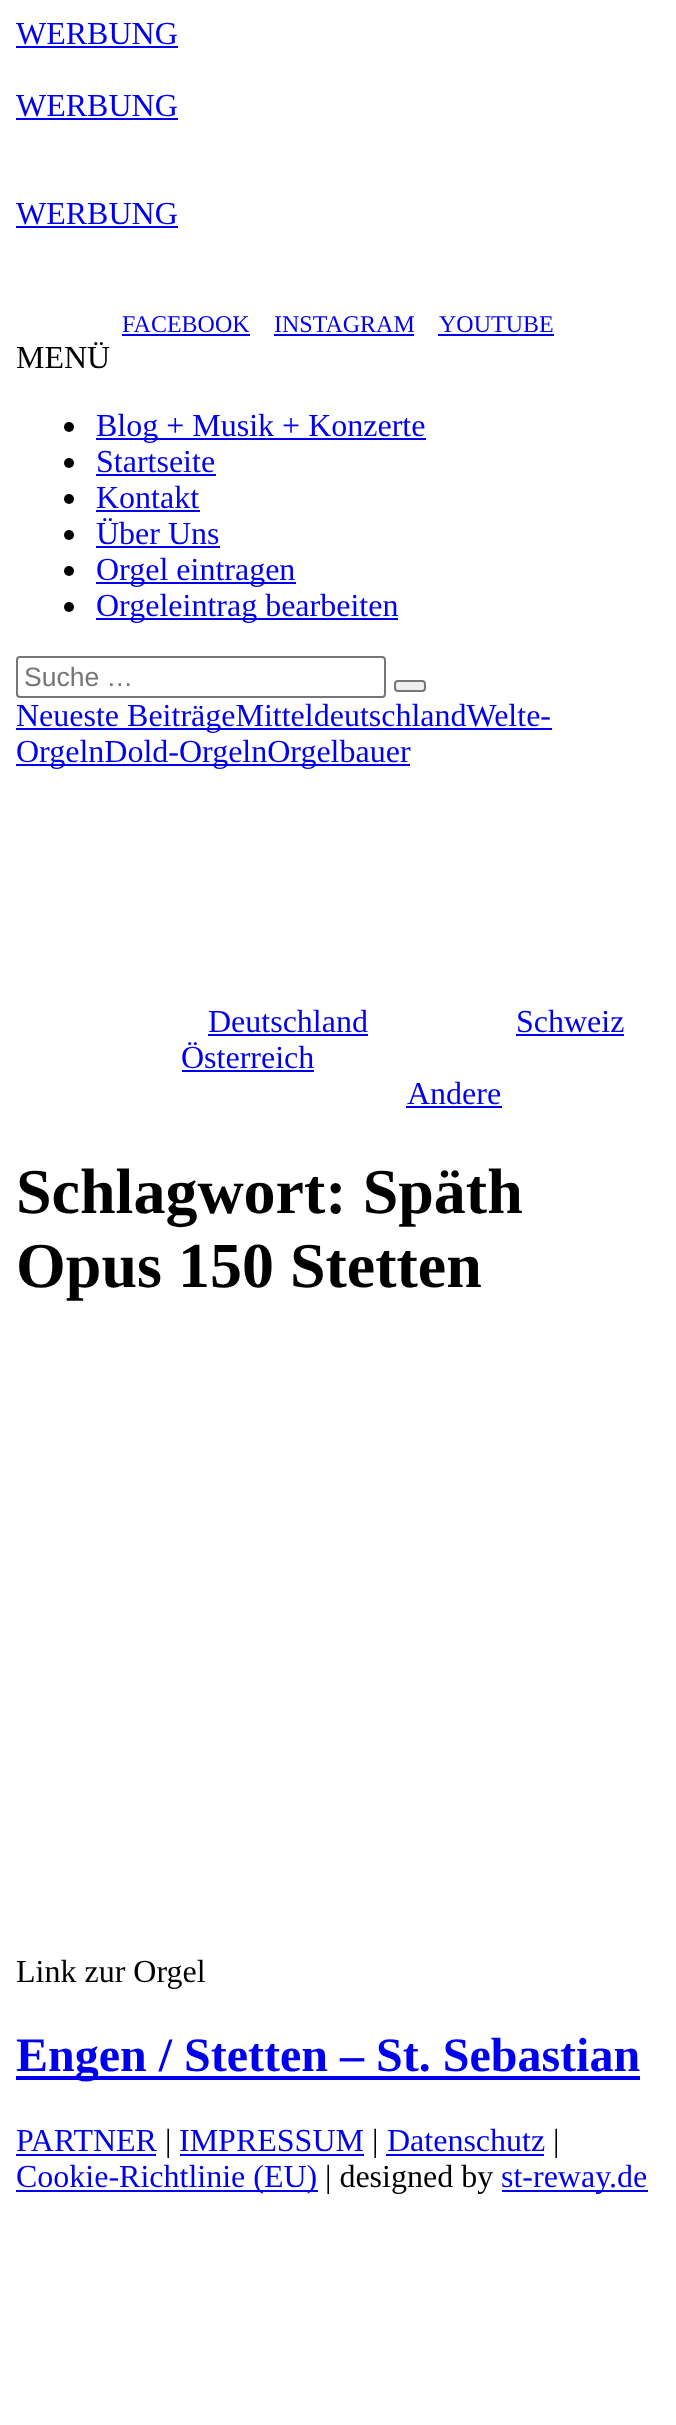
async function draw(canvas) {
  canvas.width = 676
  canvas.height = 2425
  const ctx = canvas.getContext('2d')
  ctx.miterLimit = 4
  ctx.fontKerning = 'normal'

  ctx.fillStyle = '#fff'
  ctx.fillRect(0, 0, 676, 2425)
  ctx.font = '32px Liberation Serif'
  ctx.fillStyle = '#00e'
  ctx.fillText('WERBUNG', 16, 44)
  ctx.fillRect(16, 46, 162, 2)
  ctx.fillText('WERBUNG', 16, 116)
  ctx.fillRect(16, 118, 162, 2)
  ctx.fillText('WERBUNG', 16, 224)
  ctx.fillRect(16, 226, 162, 2)
  ctx.font = '24px Liberation Serif'
  ctx.fillText('FACEBOOK', 122, 332)
  ctx.fillRect(122, 334, 128, 2)
  ctx.fillText('INSTAGRAM', 274, 332)
  ctx.fillRect(274, 334, 140, 2)
  ctx.fillText('YOUTUBE', 439, 332)
  ctx.fillRect(438, 334, 116, 2)
  ctx.font = '32px Liberation Serif'
  ctx.fillStyle = '#000'
  ctx.fillText('MENÜ', 16, 368)
  ctx.beginPath()
  ctx.arc(69, 427, 5, 0, 2 * Math.PI)
  ctx.fill()
  ctx.fillStyle = '#00e'
  ctx.fillRect(96, 438, 330, 2)
  ctx.fillText('Blog + Musik + Konzerte', 96, 436)
  ctx.fillStyle = '#000'
  ctx.beginPath()
  ctx.arc(69, 463, 5, 0, 2 * Math.PI)
  ctx.fill()
  ctx.fillStyle = '#00e'
  ctx.fillText('Startseite', 96, 472)
  ctx.fillRect(96, 474, 120, 2)
  ctx.fillStyle = '#000'
  ctx.beginPath()
  ctx.arc(69, 499, 5, 0, 2 * Math.PI)
  ctx.fill()
  ctx.fillStyle = '#00e'
  ctx.fillText('Kontakt', 96, 508)
  ctx.fillRect(96, 510, 104, 2)
  ctx.fillStyle = '#000'
  ctx.beginPath()
  ctx.arc(69, 535, 5, 0, 2 * Math.PI)
  ctx.fill()
  ctx.fillStyle = '#00e'
  ctx.fillText('Über Uns', 96, 544)
  ctx.fillRect(96, 546, 124, 2)
  ctx.fillStyle = '#000'
  ctx.beginPath()
  ctx.arc(69, 571, 5, 0, 2 * Math.PI)
  ctx.fill()
  ctx.fillStyle = '#00e'
  ctx.fillRect(96, 582, 200, 2)
  ctx.fillText('Orgel eintragen', 96, 580)
  ctx.fillStyle = '#000'
  ctx.beginPath()
  ctx.arc(69, 607, 5, 0, 2 * Math.PI)
  ctx.fill()
  ctx.fillStyle = '#00e'
  ctx.fillRect(96, 618, 302, 2)
  ctx.fillText('Orgeleintrag bearbeiten', 96, 616)
  ctx.beginPath()
  ctx.roundRect(17, 657, 368, 40, 3)
  ctx.strokeStyle = '#767676'
  ctx.lineWidth = 2
  ctx.stroke()
  ctx.font = '26.5px Liberation Sans'
  ctx.fillStyle = '#757575'
  ctx.fillText('Suche …', 24, 686)
  ctx.fillStyle = '#efefef'
  ctx.beginPath()
  ctx.roundRect(395, 681, 30, 10, 3)
  ctx.fill()
  ctx.stroke()
  ctx.fillStyle = '#00e'
  ctx.fillRect(16, 728, 450, 2)
  ctx.font = '32px Liberation Serif'
  ctx.fillText('Neueste BeiträgeMitteldeutschlandWelte-', 16, 726)
  ctx.fillRect(16, 764, 394, 2)
  ctx.fillText('OrgelnDold-OrgelnOrgelbauer', 16, 762)
  ctx.fillRect(466, 728, 86, 2)
  ctx.fillText('Deutschland', 208, 1032)
  ctx.fillRect(208, 1034, 160, 2)
  ctx.fillText('Schweiz', 516, 1032)
  ctx.fillRect(516, 1034, 108, 2)
  ctx.fillText('Österreich', 181, 1068)
  ctx.fillRect(182, 1070, 132, 2)
  ctx.fillText('Andere', 407, 1104)
  ctx.fillRect(406, 1106, 96, 2)
  ctx.font = 'bold 64px Liberation Serif'
  ctx.fillStyle = '#000'
  ctx.fillText('Schlagwort: Späth', 16, 1213)
  ctx.fillText('Opus 150 Stetten', 16, 1287)
  ctx.font = '32px Liberation Serif'
  ctx.fillText('Link zur Orgel', 16, 1982)
  ctx.fillStyle = '#00e'
  ctx.fillRect(16, 2076, 624, 4)
  ctx.font = 'bold 48px Liberation Serif'
  ctx.fillText('Engen / Stetten – St. Sebastian', 16, 2071)
  ctx.font = '32px Liberation Serif'
  ctx.fillText('PARTNER', 16, 2151)
  ctx.fillRect(16, 2154, 140, 2)
  ctx.fillStyle = '#000'
  ctx.fillText('|', 165, 2151)
  ctx.fillStyle = '#00e'
  ctx.fillText('IMPRESSUM', 179, 2151)
  ctx.fillRect(180, 2154, 184, 2)
  ctx.fillStyle = '#000'
  ctx.fillText('|', 372, 2151)
  ctx.fillStyle = '#00e'
  ctx.fillText('Datenschutz', 387, 2151)
  ctx.fillRect(386, 2154, 158, 2)
  ctx.fillStyle = '#000'
  ctx.fillText('|', 553, 2151)
  ctx.fillStyle = '#00e'
  ctx.fillRect(16, 2190, 302, 2)
  ctx.fillText('Cookie-Richtlinie (EU)', 16, 2187)
  ctx.fillStyle = '#000'
  ctx.fillText('| designed by', 325, 2187)
  ctx.fillStyle = '#00e'
  ctx.fillRect(502, 2190, 146, 2)
  ctx.fillText('st-reway.de', 501, 2187)
}

draw(document.querySelector('canvas'))
